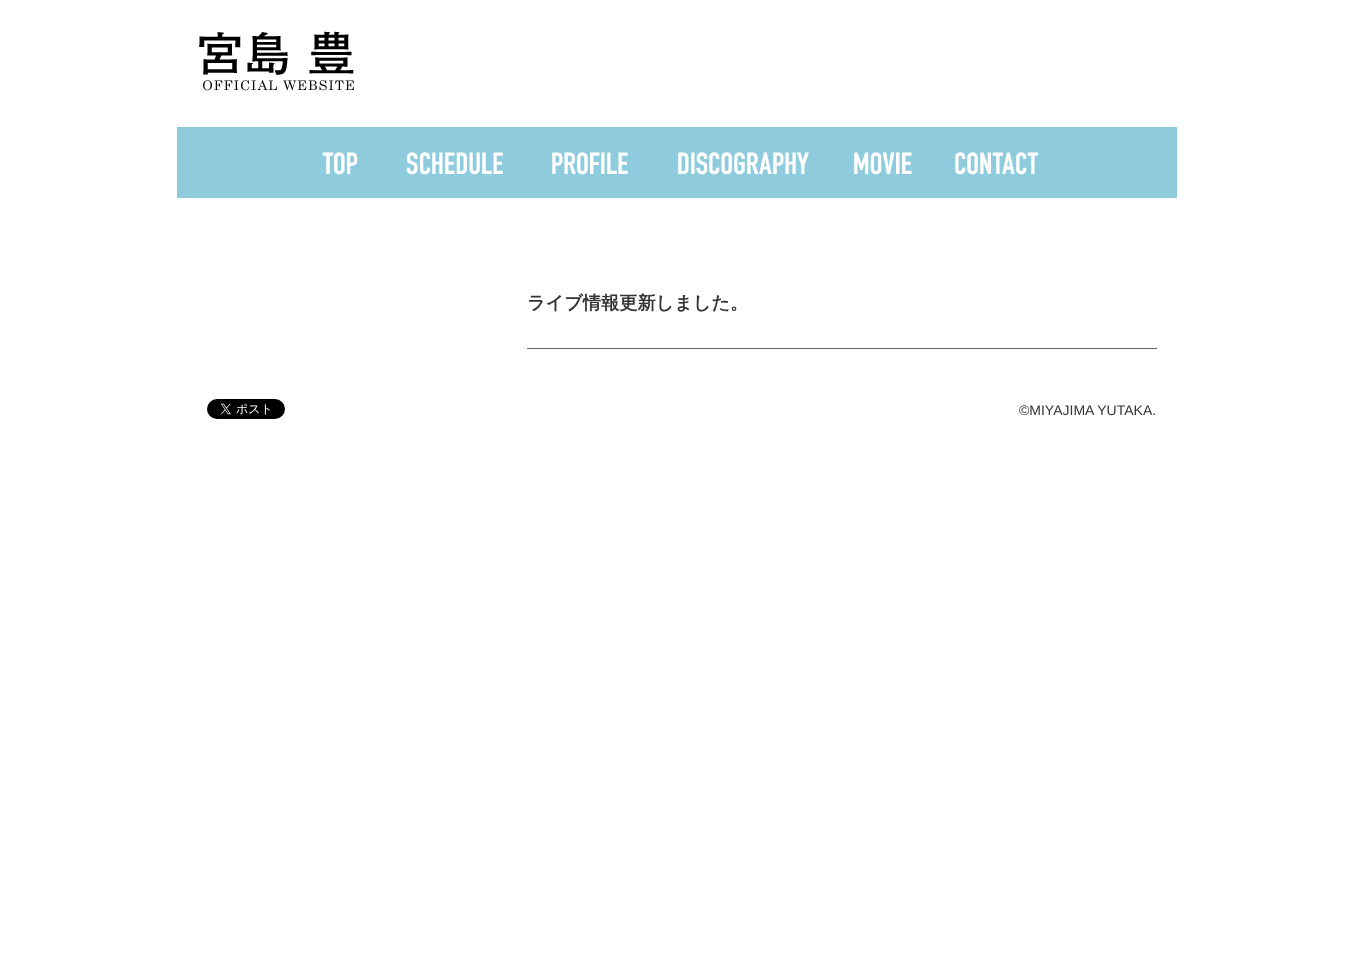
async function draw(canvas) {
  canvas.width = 1353
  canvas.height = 955
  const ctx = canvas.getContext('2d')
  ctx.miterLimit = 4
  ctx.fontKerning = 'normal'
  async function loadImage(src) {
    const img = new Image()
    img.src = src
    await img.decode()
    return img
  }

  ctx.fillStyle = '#fff'
  ctx.fillRect(0, 0, 1353, 955)
  ctx.drawImage(await loadImage('image0.png'), 199, 31, 155, 60)
  ctx.fillStyle = '#8eccdd'
  ctx.fillRect(177, 127, 1000, 71)
  ctx.drawImage(await loadImage('image1.png'), 322, 152, 36, 23)
  ctx.drawImage(await loadImage('image2.png'), 406, 152, 97, 23)
  ctx.drawImage(await loadImage('image3.png'), 552, 152, 76, 23)
  ctx.drawImage(await loadImage('image4.png'), 678, 152, 131, 23)
  ctx.drawImage(await loadImage('image5.png'), 854, 152, 58, 23)
  ctx.drawImage(await loadImage('image6.png'), 955, 152, 83, 23)
  ctx.fillStyle = '#666'
  ctx.fillRect(527, 348, 630, 1)
  ctx.font = 'bold 18.2px WenQuanYi Zen Hei'
  ctx.fillStyle = '#333'
  ctx.fillText('ライブ情報更新しました。', 527, 309)
  ctx.drawImage(await loadImage('image7.png'), 207, 399, 78, 20)
  ctx.font = '14px Liberation Sans'
  ctx.fillText('©MIYAJIMA YUTAKA.', 1019, 415)
}

draw(document.querySelector('canvas'))
